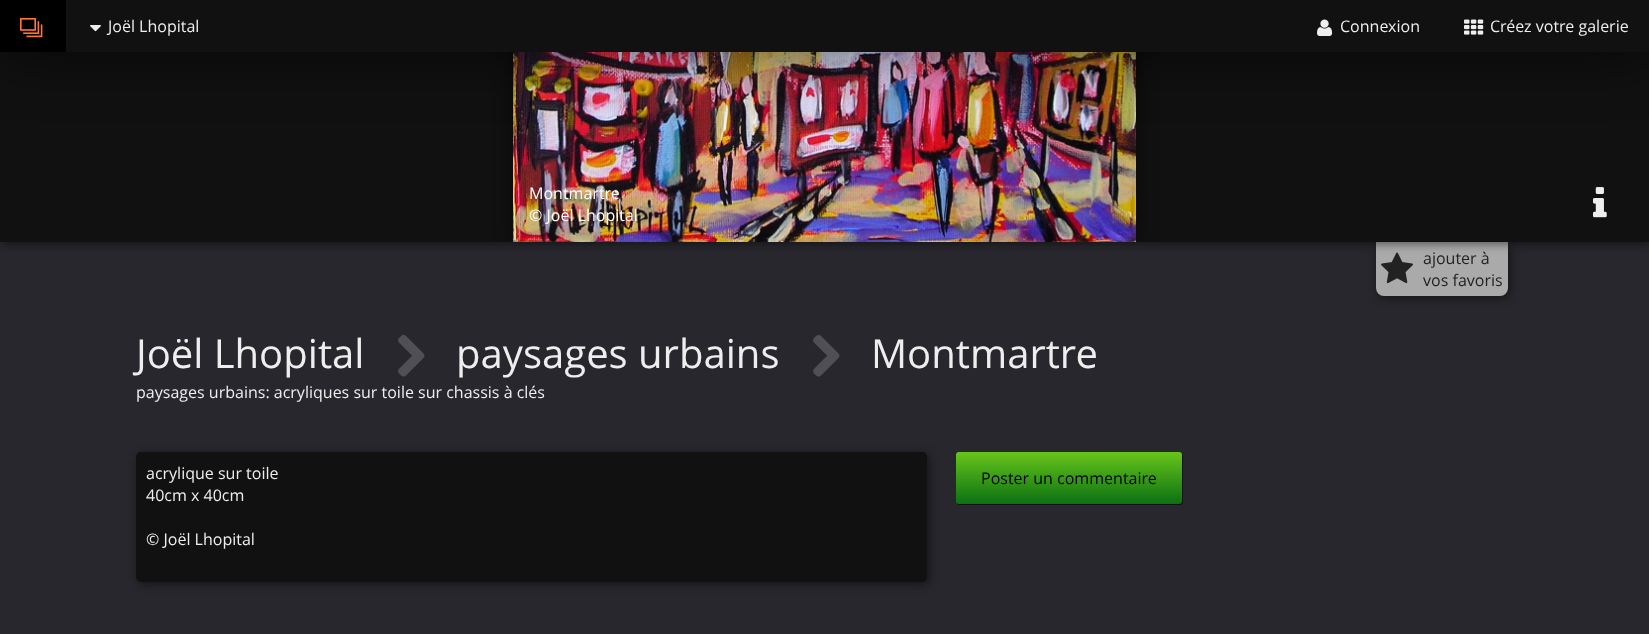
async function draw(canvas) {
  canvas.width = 1649
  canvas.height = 634
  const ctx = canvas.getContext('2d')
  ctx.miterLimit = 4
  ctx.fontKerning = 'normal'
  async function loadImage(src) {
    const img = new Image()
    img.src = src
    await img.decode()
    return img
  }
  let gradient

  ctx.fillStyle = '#28272d'
  ctx.fillRect(0, 0, 1649, 634)
  ctx.fillStyle = '#00000080'
  ctx.filter = 'blur(5px)'
  ctx.beginPath()
  ctx.roundRect(1378, 244, 132, 54, 8)
  ctx.fill()
  ctx.filter = 'none'
  ctx.fillStyle = '#aaa'
  ctx.beginPath()
  ctx.roundRect(1376, 242, 132, 54, [0, 0, 8, 8])
  ctx.fill()
  ctx.drawImage(await loadImage('image6.png'), 1381, 252, 32, 32)
  ctx.fillStyle = '#00000080'
  ctx.filter = 'blur(5px)'
  ctx.beginPath()
  ctx.rect(2, -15, 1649, 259)
  ctx.fill()
  ctx.filter = 'none'
  ctx.fillStyle = '#111'
  ctx.fillRect(0, 52, 1649, 190)
  ctx.save()
  ctx.beginPath()
  ctx.rect(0, 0, 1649, 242)
  ctx.clip()
  ctx.fillStyle = '#00000080'
  ctx.filter = 'blur(10px)'
  ctx.beginPath()
  ctx.rect(513, -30, 623, 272)
  ctx.fill()
  ctx.filter = 'none'
  ctx.restore()
  ctx.drawImage(await loadImage('image4.png'), 513, 52, 623, 190)
  ctx.fillStyle = '#000000b3'
  ctx.filter = 'blur(30px)'
  ctx.beginPath()
  ctx.rect(0, 0, 1649, 52)
  ctx.fill()
  ctx.filter = 'none'
  ctx.fillStyle = '#111'
  ctx.fillRect(66, 0, 1583, 52)
  ctx.fillStyle = '#000'
  ctx.fillRect(0, 0, 66, 52)
  ctx.drawImage(await loadImage('image0.png'), 20, 18, 23, 20)
  ctx.drawImage(await loadImage('image1.png'), 90, 25, 11, 7)
  ctx.font = '16px Open Sans'
  ctx.fillStyle = '#eee'
  ctx.fillText('Joël Lhopital', 108, 32)
  ctx.drawImage(await loadImage('image2.png'), 1317, 19, 16, 17)
  ctx.fillText('Connexion', 1340, 32)
  ctx.drawImage(await loadImage('image3.png'), 1464, 19, 20, 16)
  ctx.fillText('Créez votre galerie', 1490, 32)
  ctx.fillStyle = '#fff'
  ctx.fillText('Montmartre', 529, 199)
  ctx.fillText('© Joël Lhopital', 529, 221)
  ctx.drawImage(await loadImage('image5.png'), 1593, 187, 14, 31)
  ctx.fillStyle = '#222'
  ctx.fillText('ajouter à', 1423, 264)
  ctx.fillText('vos favoris', 1423, 286)
  ctx.font = '40px Open Sans'
  ctx.fillStyle = '#eee'
  ctx.fillText('Joël Lhopital', 136, 368)
  ctx.drawImage(await loadImage('image7.png'), 398, 335, 27, 42)
  ctx.fillText('paysages urbains', 456, 368)
  ctx.drawImage(await loadImage('image7.png'), 813, 335, 27, 42)
  ctx.fillText('Montmartre', 871, 368)
  ctx.font = '16px Open Sans'
  ctx.fillText('paysages urbains: acryliques sur toile sur chassis à clés', 136, 398)
  ctx.fillStyle = '#00000080'
  ctx.filter = 'blur(5px)'
  ctx.beginPath()
  ctx.roundRect(138, 454, 791, 130, 5)
  ctx.fill()
  ctx.filter = 'none'
  ctx.fillStyle = '#111'
  ctx.beginPath()
  ctx.roundRect(136, 452, 791, 130, 5)
  ctx.fill()
  ctx.fillStyle = '#eee'
  ctx.fillText('acrylique sur toile', 146, 479)
  ctx.fillText('40cm x 40cm', 146, 501)
  ctx.fillText('© Joël Lhopital', 146, 545)
  ctx.fillStyle = '#00000080'
  ctx.filter = 'blur(0.5px)'
  ctx.beginPath()
  ctx.roundRect(957, 453, 226, 52, 3)
  ctx.fill()
  ctx.filter = 'none'
  gradient = ctx.createLinearGradient(1069, 452, 1069, 504)
  gradient.addColorStop(0, '#67c51a')
  gradient.addColorStop(1, '#0b7113')
  ctx.fillStyle = gradient
  ctx.beginPath()
  ctx.roundRect(956, 452, 226, 52, 3)
  ctx.fill()
  ctx.fillStyle = '#000'
  ctx.fillText('Poster un commentaire', 981, 484)
}

draw(document.querySelector('canvas'))
